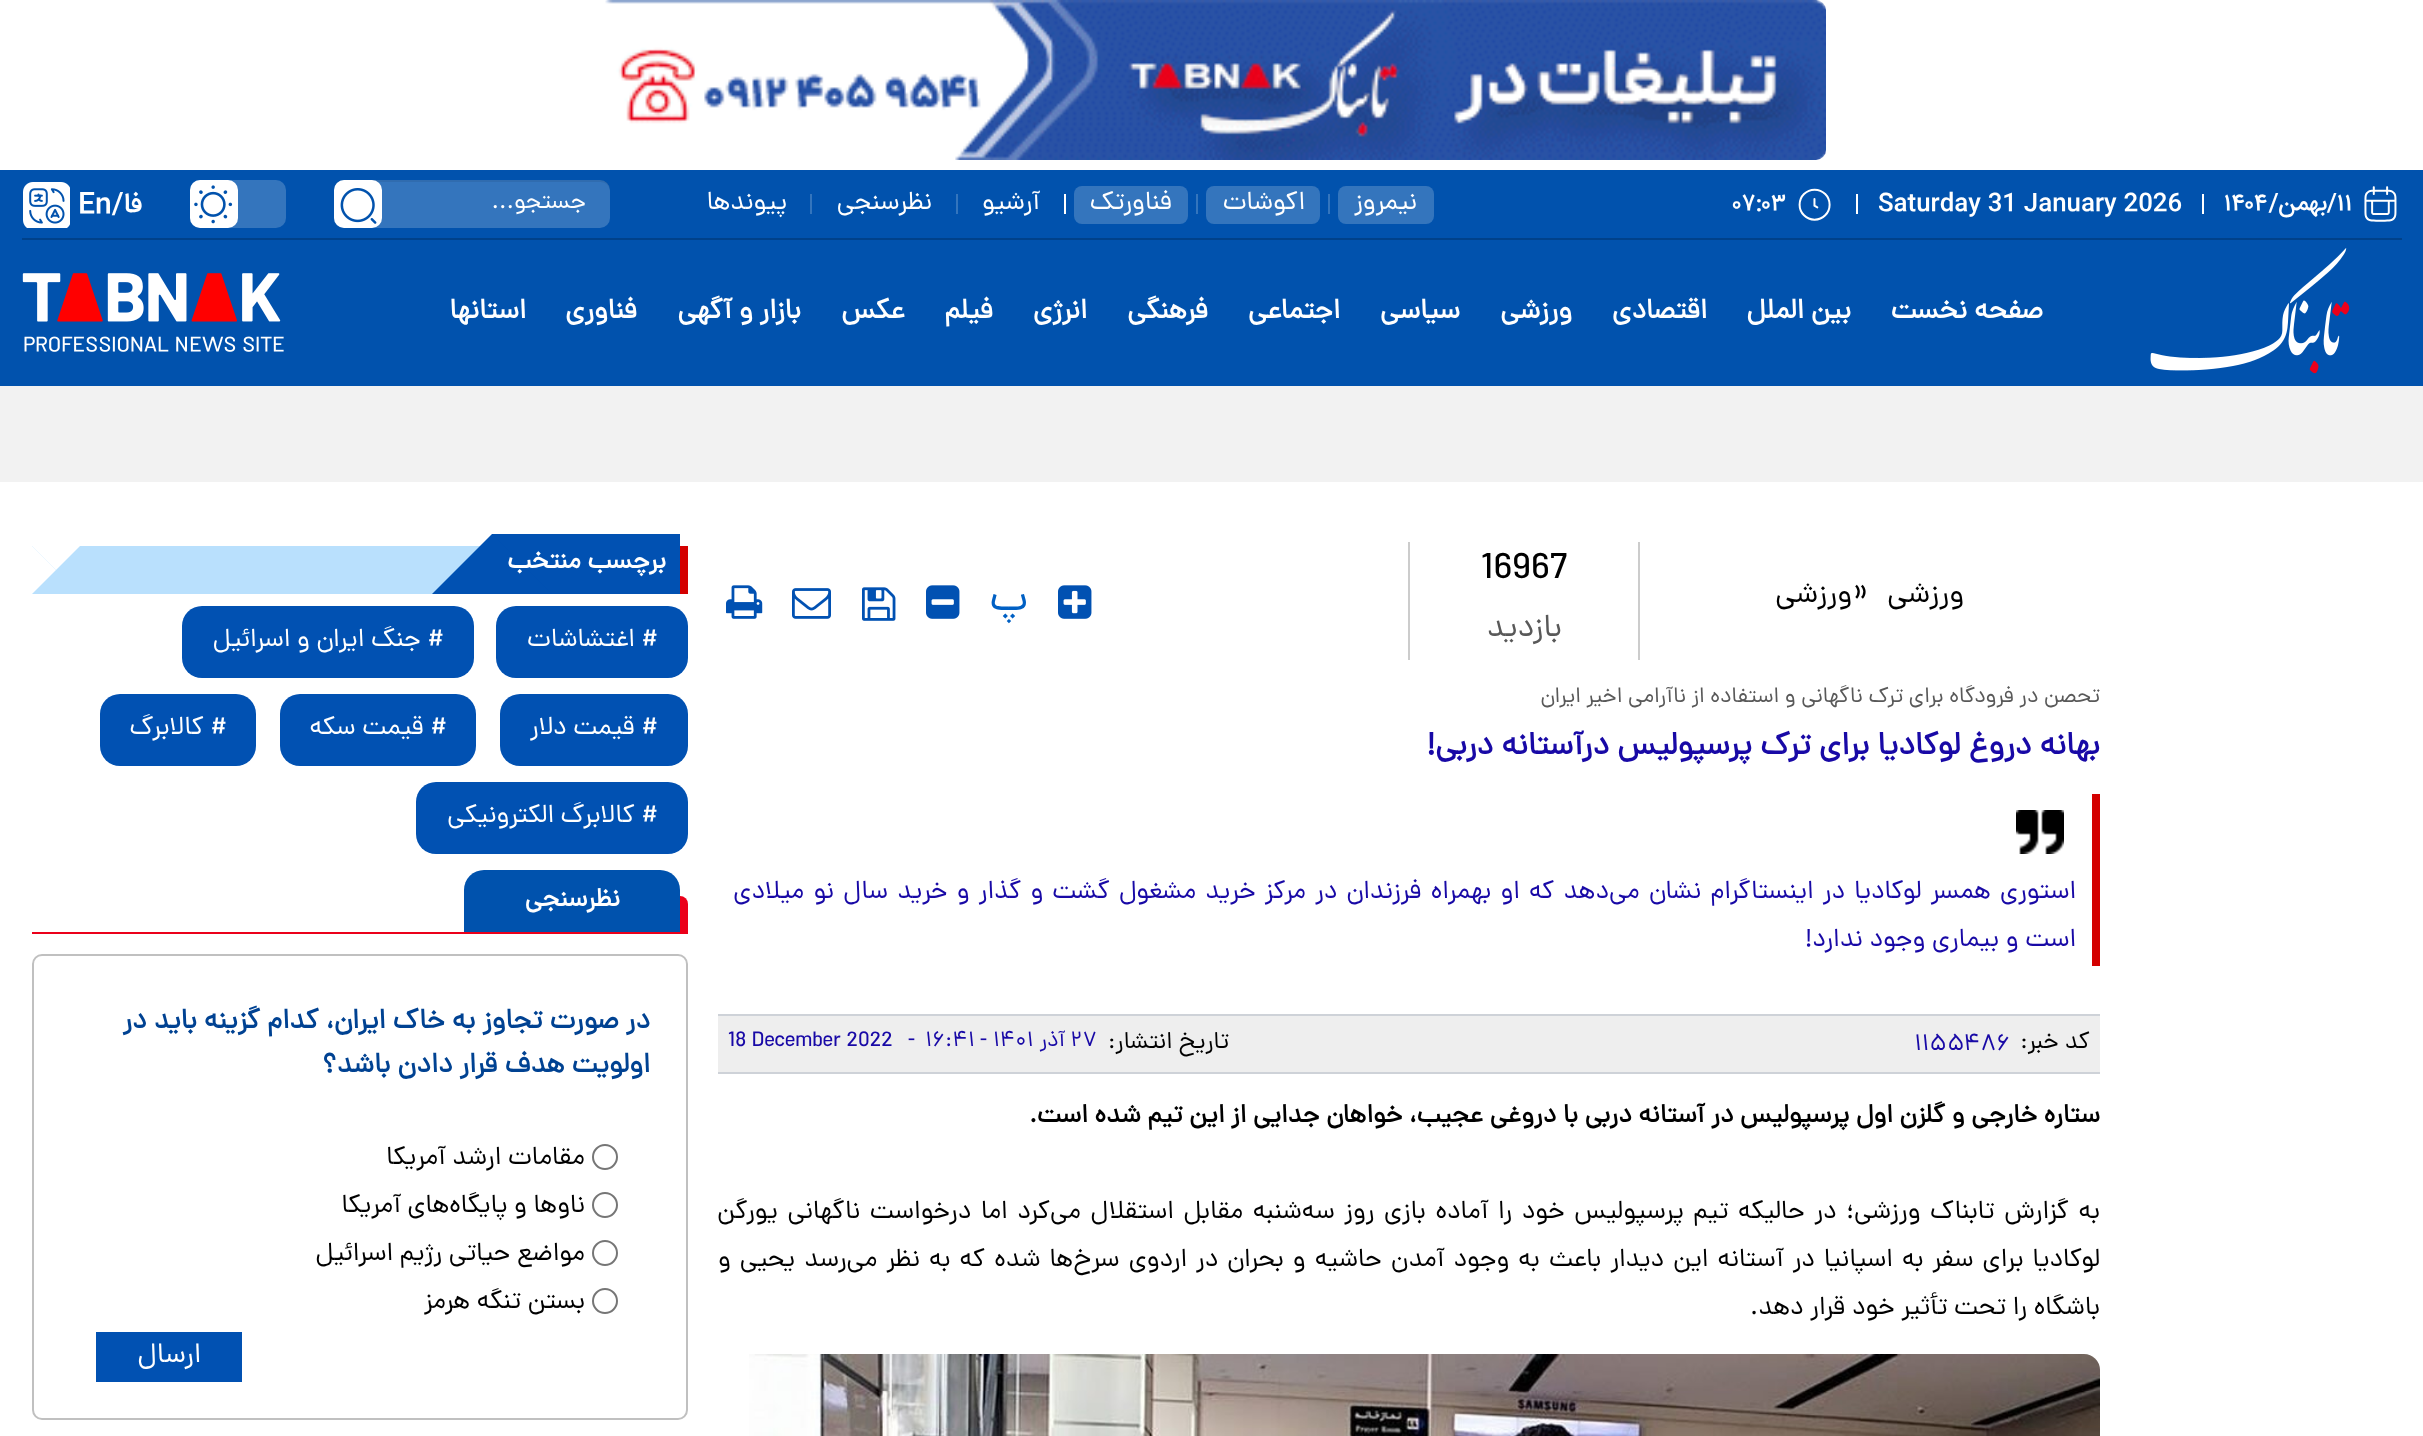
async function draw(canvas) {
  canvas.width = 2423
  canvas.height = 1436
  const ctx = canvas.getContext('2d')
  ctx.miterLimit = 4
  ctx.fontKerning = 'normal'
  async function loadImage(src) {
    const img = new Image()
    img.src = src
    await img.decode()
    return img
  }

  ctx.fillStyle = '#fff'
  ctx.fillRect(0, 0, 2423, 1436)
  ctx.drawImage(await loadImage('image0.png'), 605, 0, 1221, 160)
  ctx.fillStyle = '#0152ad'
  ctx.fillRect(0, 170, 2423, 216)
  ctx.fillStyle = '#00418a'
  ctx.fillRect(22, 238, 2380, 2)
  ctx.drawImage(await loadImage('image1.png'), 2364, 186, 33, 36)
  ctx.font = '500 24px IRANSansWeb'
  ctx.fillStyle = '#fff'
  ctx.fillText('۱۱', 2337, 210)
  ctx.fillText('۱۴۰۴', 2224, 210)
  ctx.direction = 'rtl'
  ctx.fillText('/بهمن/', 2337, 210)
  ctx.fillRect(2202, 194, 2, 20)
  ctx.direction = 'ltr'
  ctx.fillText('Saturday 31 January 2026', 1878, 210)
  ctx.fillRect(1856, 194, 2, 20)
  ctx.drawImage(await loadImage('image2.png'), 1798, 188, 33, 33)
  ctx.fillText('۰۷:۰۳', 1733, 210)
  ctx.fillStyle = '#3475bd'
  ctx.beginPath()
  ctx.roundRect(1338, 186, 96, 38, 8)
  ctx.fill()
  ctx.direction = 'rtl'
  ctx.font = '26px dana'
  ctx.fillStyle = '#fff'
  ctx.fillText('نیمروز', 1417, 209)
  ctx.fillStyle = '#3475bd'
  ctx.fillRect(1328, 194, 2, 20)
  ctx.beginPath()
  ctx.roundRect(1206, 186, 114, 38, 8)
  ctx.fill()
  ctx.fillStyle = '#fff'
  ctx.fillText('اکوشات', 1305, 209)
  ctx.fillStyle = '#3475bd'
  ctx.fillRect(1196, 194, 2, 20)
  ctx.beginPath()
  ctx.roundRect(1074, 186, 114, 38, 8)
  ctx.fill()
  ctx.fillStyle = '#fff'
  ctx.fillText('فناورتک', 1172, 209)
  ctx.fillRect(1064, 194, 2, 20)
  ctx.fillText('آرشیو', 1040, 209)
  ctx.fillStyle = '#3475bd'
  ctx.fillRect(956, 194, 2, 20)
  ctx.fillStyle = '#fff'
  ctx.fillText('نظرسنجی', 932, 209)
  ctx.fillStyle = '#3475bd'
  ctx.fillRect(810, 194, 2, 20)
  ctx.fillStyle = '#fff'
  ctx.fillText('پیوندها', 787, 209)
  ctx.fillStyle = '#3475bd'
  ctx.beginPath()
  ctx.roundRect(334, 180, 276, 48, 10)
  ctx.fill()
  ctx.fillStyle = '#00000012'
  ctx.beginPath()
  ctx.moveTo(344, 182)
  ctx.lineTo(600, 182)
  ctx.bezierCurveTo(606, 182, 610, 186, 610, 192)
  ctx.lineTo(610, 190)
  ctx.bezierCurveTo(610, 184, 606, 180, 600, 180)
  ctx.lineTo(344, 180)
  ctx.bezierCurveTo(338, 180, 334, 184, 334, 190)
  ctx.lineTo(334, 192)
  ctx.bezierCurveTo(334, 186, 338, 182, 344, 182)
  ctx.closePath()
  ctx.fill()
  ctx.font = '24px dana'
  ctx.fillStyle = '#fff'
  ctx.fillText('جستجو...', 586, 208)
  ctx.beginPath()
  ctx.roundRect(334, 180, 48, 48, 10)
  ctx.fill()
  ctx.drawImage(await loadImage('image3.png'), 340, 188, 37, 36)
  ctx.fillStyle = '#3475bd'
  ctx.beginPath()
  ctx.roundRect(190, 180, 96, 48, 10)
  ctx.fill()
  ctx.fillStyle = '#fff'
  ctx.beginPath()
  ctx.roundRect(190, 180, 48, 48, 10)
  ctx.fill()
  ctx.drawImage(await loadImage('image4.png'), 194, 185, 39, 39)
  ctx.font = '500 28px IRANSansWeb'
  ctx.fillText('فا', 142, 212)
  ctx.direction = 'ltr'
  ctx.fillText('En/', 78, 212)
  ctx.drawImage(await loadImage('image5.png'), 23, 182, 47, 46)
  ctx.drawImage(await loadImage('image6.png'), 2150, 248, 200, 126)
  ctx.direction = 'rtl'
  ctx.font = 'bold 28px dana'
  ctx.fillText('صفحه نخست', 2043, 318)
  ctx.fillText('بین الملل', 1851, 318)
  ctx.fillText('اقتصادی', 1707, 318)
  ctx.fillText('ورزشی', 1572, 318)
  ctx.fillText('سیاسی', 1460, 318)
  ctx.fillText('اجتماعی', 1340, 318)
  ctx.fillText('فرهنگی', 1208, 318)
  ctx.fillText('انرژی', 1087, 318)
  ctx.fillText('فیلم', 993, 318)
  ctx.fillText('عکس', 905, 318)
  ctx.fillText('بازار و آگهی', 801, 318)
  ctx.fillText('فناوری', 637, 318)
  ctx.fillText('استانها', 526, 318)
  ctx.drawImage(await loadImage('image7.png'), 22, 273, 262, 79)
  ctx.fillStyle = '#f2f2f2'
  ctx.fillRect(0, 386, 2423, 96)
  ctx.font = '30px dana'
  ctx.fillStyle = '#000'
  ctx.fillText('ورزشی', 1964, 602)
  ctx.direction = 'ltr'
  ctx.font = '36px dana'
  ctx.fillText('»', 1852, 602)
  ctx.direction = 'rtl'
  ctx.font = '30px dana'
  ctx.fillText('ورزشی', 1852, 602)
  ctx.fillStyle = '#ccc'
  ctx.fillRect(1638, 542, 2, 118)
  ctx.fillRect(1408, 542, 2, 118)
  ctx.direction = 'ltr'
  ctx.font = '38px dana'
  ctx.fillStyle = '#000'
  ctx.fillText('16967', 1481, 578)
  ctx.direction = 'rtl'
  ctx.font = '32px dana'
  ctx.fillStyle = '#595959'
  ctx.fillText('بازدید', 1562, 636)
  ctx.drawImage(await loadImage('image8.png'), 1058, 585, 34, 34)
  ctx.font = '42px dana'
  ctx.fillStyle = '#0060c4'
  ctx.fillText('پ', 1028, 610)
  ctx.drawImage(await loadImage('image9.png'), 926, 585, 34, 34)
  ctx.drawImage(await loadImage('image10.png'), 862, 587, 34, 34)
  ctx.drawImage(await loadImage('image11.png'), 792, 588, 39, 31)
  ctx.drawImage(await loadImage('image12.png'), 726, 585, 37, 34)
  ctx.font = '22px dana'
  ctx.fillStyle = '#595959'
  ctx.fillText('تحصن در فرودگاه برای ترک ناگهانی و استفاده از ناآرامی اخیر ایران', 2100, 702)
  ctx.font = 'bold 32px dana'
  ctx.fillStyle = '#1809a6'
  ctx.fillText('بهانه دروغ لوکادیا برای ترک پرسپولیس درآستانه دربی!', 2100, 754)
  ctx.fillStyle = '#d40000'
  ctx.fillRect(2092, 794, 8, 172)
  ctx.drawImage(await loadImage('image13.png'), 2016, 810, 48, 44)
  ctx.wordSpacing = '2.5px'
  ctx.font = '26px dana'
  ctx.fillStyle = '#1809a6'
  ctx.fillText('استوری همسر لوکادیا در اینستاگرام نشان می‌دهد که او بهمراه فرزندان در مرکز خرید مشغول گشت و گذار و خرید سال نو میلادی', 2076, 898)
  ctx.wordSpacing = '0px'
  ctx.fillText('است و بیماری وجود ندارد!', 2076, 946)
  ctx.fillStyle = '#eee'
  ctx.fillRect(718, 1016, 1382, 56)
  ctx.fillStyle = '#ced2d8'
  ctx.fillRect(718, 1014, 1382, 2)
  ctx.fillRect(718, 1072, 1382, 2)
  ctx.font = '24px dana'
  ctx.fillStyle = '#000'
  ctx.fillText('کد خبر:', 2090, 1048)
  ctx.direction = 'ltr'
  ctx.fillStyle = '#1809a6'
  ctx.fillText('۱۱۵۵۴۸۶', 1914, 1050)
  ctx.direction = 'rtl'
  ctx.fillStyle = '#000'
  ctx.fillText('تاریخ انتشار:', 1229, 1048)
  ctx.direction = 'ltr'
  ctx.font = '22px dana'
  ctx.fillStyle = '#1809a6'
  ctx.fillText('۲۷', 1070, 1046)
  ctx.direction = 'rtl'
  ctx.fillText('آذر', 1065, 1046)
  ctx.direction = 'ltr'
  ctx.fillText('۱۶:۴۱ - ۱۴۰۱', 925, 1046)
  ctx.fillText('-', 908, 1046)
  ctx.fillText('18 December 2022', 728, 1046)
  ctx.direction = 'rtl'
  ctx.font = 'bold 26px dana'
  ctx.fillStyle = '#000'
  ctx.fillText('ستاره خارجی و گلزن اول پرسپولیس در آستانه دربی با دروغی عجیب، خواهان جدایی از این تیم شده است.', 2100, 1122)
  ctx.wordSpacing = '2.9px'
  ctx.font = '26px dana'
  ctx.fillText('به گزارش تابناک ورزشی؛ در حالیکه تیم پرسپولیس خود را آماده بازی روز سه‌شنبه مقابل استقلال می‌کرد اما درخواست ناگهانی یورگن', 2100, 1218)
  ctx.wordSpacing = '2.4px'
  ctx.fillText('لوکادیا برای سفر به اسپانیا در آستانه این دیدار باعث به وجود آمدن حاشیه و بحران در اردوی سرخ‌ها شده که به نظر می‌رسد یحیی و', 2100, 1266)
  ctx.wordSpacing = '0px'
  ctx.fillText('باشگاه را تحت تأثیر خود قرار دهد.', 2100, 1314)
  ctx.drawImage(await loadImage('image14.png'), 749, 1354, 1351, 82)
  ctx.fillStyle = '#b9e0fd'
  ctx.fillRect(32, 546, 448, 48)
  ctx.fillStyle = '#d40000'
  ctx.fillRect(680, 546, 8, 48)
  ctx.fillStyle = '#0151b2'
  ctx.fillRect(492, 534, 188, 60)
  ctx.beginPath()
  ctx.moveTo(552, 594)
  ctx.lineTo(432, 594)
  ctx.lineTo(492, 534)
  ctx.closePath()
  ctx.fill()
  ctx.font = 'bold 26px dana'
  ctx.fillStyle = '#fff'
  ctx.fillText('برچسب منتخب', 666, 568)
  ctx.beginPath()
  ctx.moveTo(32, 546)
  ctx.lineTo(80, 546)
  ctx.lineTo(56, 570)
  ctx.closePath()
  ctx.fill()
  ctx.beginPath()
  ctx.moveTo(32, 594)
  ctx.lineTo(32, 546)
  ctx.lineTo(56, 570)
  ctx.closePath()
  ctx.fill()
  ctx.fillStyle = '#0151b2'
  ctx.beginPath()
  ctx.roundRect(496, 606, 192, 72, 20)
  ctx.fill()
  ctx.font = '26px dana'
  ctx.fillStyle = '#fff'
  ctx.fillText('# اغتشاشات', 658, 646)
  ctx.fillStyle = '#0151b2'
  ctx.beginPath()
  ctx.roundRect(182, 606, 292, 72, 20)
  ctx.fill()
  ctx.fillStyle = '#fff'
  ctx.fillText('# جنگ ایران و اسرائیل', 444, 646)
  ctx.fillStyle = '#0151b2'
  ctx.beginPath()
  ctx.roundRect(500, 694, 188, 72, 20)
  ctx.fill()
  ctx.fillStyle = '#fff'
  ctx.fillText('# قیمت دلار', 658, 734)
  ctx.fillStyle = '#0151b2'
  ctx.beginPath()
  ctx.roundRect(280, 694, 196, 72, 20)
  ctx.fill()
  ctx.fillStyle = '#fff'
  ctx.fillText('# قیمت سکه', 447, 734)
  ctx.fillStyle = '#0151b2'
  ctx.beginPath()
  ctx.roundRect(100, 694, 156, 72, 20)
  ctx.fill()
  ctx.fillStyle = '#fff'
  ctx.fillText('# کالابرگ', 227, 734)
  ctx.fillStyle = '#0151b2'
  ctx.beginPath()
  ctx.roundRect(416, 782, 272, 72, 20)
  ctx.fill()
  ctx.fillStyle = '#fff'
  ctx.fillText('# کالابرگ الکترونیکی', 658, 822)
  ctx.fillStyle = '#eb001a'
  ctx.fillRect(32, 932, 656, 2)
  ctx.fillStyle = '#0052ad'
  ctx.beginPath()
  ctx.roundRect(464, 870, 216, 62, [20, 20, 0, 0])
  ctx.fill()
  ctx.fillStyle = '#eb001a'
  ctx.beginPath()
  ctx.roundRect(680, 896, 8, 36, [0, 8, 0, 0])
  ctx.fill()
  ctx.font = 'bold 26px dana'
  ctx.fillStyle = '#fff'
  ctx.fillText('نظرسنجی', 620, 906)
  ctx.beginPath()
  ctx.roundRect(33, 955, 654, 464, 9)
  ctx.strokeStyle = '#c0c0c0'
  ctx.lineWidth = 2
  ctx.stroke()
  ctx.font = 'bold 28px dana'
  ctx.fillStyle = '#004292'
  ctx.fillText('در صورت تجاوز به خاک ایران، کدام گزینه باید در', 650, 1028)
  ctx.fillText('اولویت هدف قرار دادن باشد؟', 650, 1072)
  ctx.beginPath()
  ctx.arc(605, 1157, 12, 0, 2 * Math.PI)
  ctx.strokeStyle = '#767676'
  ctx.stroke()
  ctx.font = '26px dana'
  ctx.fillStyle = '#000'
  ctx.fillText('مقامات ارشد آمریکا', 585, 1164)
  ctx.beginPath()
  ctx.arc(605, 1205, 12, 0, 2 * Math.PI)
  ctx.stroke()
  ctx.fillText('ناوها و پایگاه‌های آمریکا', 585, 1212)
  ctx.beginPath()
  ctx.arc(605, 1253, 12, 0, 2 * Math.PI)
  ctx.stroke()
  ctx.fillText('مواضع حیاتی رژیم اسرائیل', 585, 1260)
  ctx.beginPath()
  ctx.arc(605, 1301, 12, 0, 2 * Math.PI)
  ctx.stroke()
  ctx.fillText('بستن تنگه هرمز', 585, 1308)
  ctx.fillStyle = '#0151b2'
  ctx.fillRect(96, 1332, 146, 50)
  ctx.font = '28px dana'
  ctx.fillStyle = '#fff'
  ctx.fillText('ارسال', 201, 1362)
}

draw(document.querySelector('canvas'))
